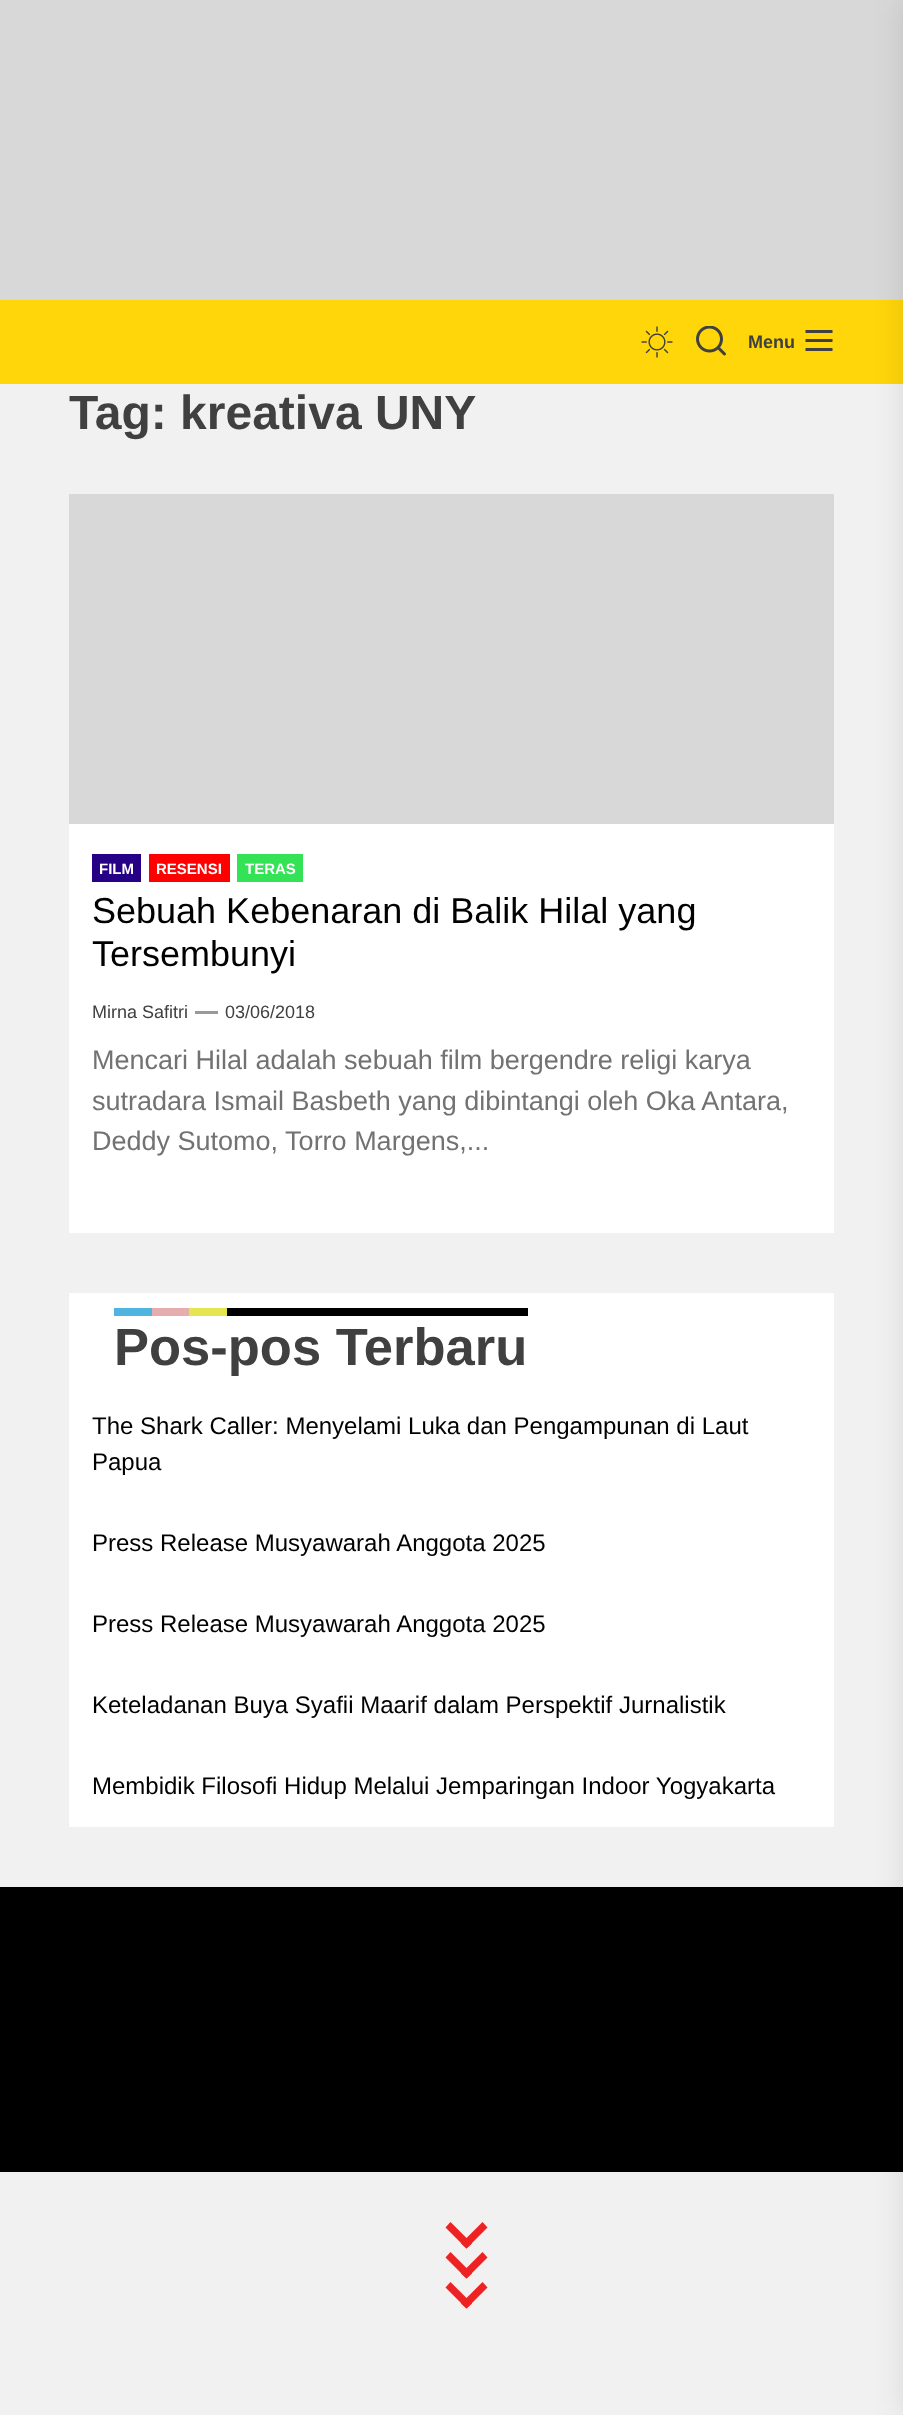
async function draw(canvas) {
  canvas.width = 903
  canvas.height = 2415
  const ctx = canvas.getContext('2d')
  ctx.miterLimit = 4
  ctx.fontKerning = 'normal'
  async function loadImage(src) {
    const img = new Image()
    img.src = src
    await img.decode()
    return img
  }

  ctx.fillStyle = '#f1f1f1'
  ctx.fillRect(0, 0, 903, 2415)
  ctx.fillStyle = '#d8d8d8'
  ctx.fillRect(0, 0, 903, 300)
  ctx.fillStyle = '#ffd60a'
  ctx.fillRect(0, 300, 903, 84)
  ctx.drawImage(await loadImage('image0.png'), 641, 326, 32, 32)
  ctx.drawImage(await loadImage('image1.png'), 696, 326, 30, 30)
  ctx.font = 'bold 18px Liberation Sans'
  ctx.fillStyle = '#404040'
  ctx.fillText('Menu', 748, 348)
  ctx.drawImage(await loadImage('image2.png'), 805, 330, 28, 21)
  ctx.fillStyle = '#000'
  ctx.fillRect(0, 1887, 903, 285)
  ctx.fillStyle = '#0000001a'
  ctx.filter = 'blur(15px)'
  ctx.beginPath()
  ctx.rect(903, 0, 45, 2415)
  ctx.fill()
  ctx.filter = 'none'
  ctx.font = 'bold 48px Liberation Sans'
  ctx.fillStyle = '#404040'
  ctx.fillText('Tag: kreativa UNY', 69, 429)
  ctx.fillStyle = '#fff'
  ctx.fillRect(69, 824, 765, 409)
  ctx.fillStyle = '#d8d8d8'
  ctx.fillRect(69, 494, 765, 330)
  ctx.fillStyle = '#260085'
  ctx.fillRect(92, 854, 49, 28)
  ctx.font = 'bold 15px Liberation Sans'
  ctx.fillStyle = '#fff'
  ctx.fillText('FILM', 99, 874)
  ctx.fillStyle = '#f00'
  ctx.fillRect(149, 854, 81, 28)
  ctx.fillStyle = '#fff'
  ctx.fillText('RESENSI', 156, 874)
  ctx.fillStyle = '#34e255'
  ctx.fillRect(237, 854, 66, 28)
  ctx.fillStyle = '#fff'
  ctx.fillText('TERAS', 245, 874)
  ctx.font = '36px Liberation Sans'
  ctx.fillStyle = '#000'
  ctx.fillText('Sebuah Kebenaran di Balik Hilal yang', 92, 923)
  ctx.fillText('Tersembunyi', 92, 966)
  ctx.font = '18px Liberation Sans'
  ctx.fillStyle = '#404040'
  ctx.fillText('Mirna Safitri', 92, 1018)
  ctx.fillStyle = '#999'
  ctx.fillRect(195, 1011, 23, 3)
  ctx.fillStyle = '#404040'
  ctx.fillText('03/06/2018', 225, 1018)
  ctx.font = '27px Liberation Sans'
  ctx.fillStyle = '#727272'
  ctx.fillText('Mencari Hilal adalah sebuah film bergendre religi karya', 92, 1069)
  ctx.fillText('sutradara Ismail Basbeth yang dibintangi oleh Oka Antara,', 92, 1110)
  ctx.fillText('Deddy Sutomo, Torro Margens,...', 92, 1150)
  ctx.fillStyle = '#fff'
  ctx.fillRect(69, 1293, 765, 534)
  ctx.fillStyle = '#51b3e0'
  ctx.fillRect(114, 1308, 38, 8)
  ctx.fillStyle = '#e5adae'
  ctx.fillRect(152, 1308, 37, 8)
  ctx.fillStyle = '#e5e54f'
  ctx.fillRect(189, 1308, 38, 8)
  ctx.fillStyle = '#000'
  ctx.fillRect(227, 1308, 301, 8)
  ctx.font = 'bold 52.5px Liberation Sans'
  ctx.fillStyle = '#404040'
  ctx.fillText('Pos-pos Terbaru', 114, 1365)
  ctx.font = '24px Liberation Sans'
  ctx.fillStyle = '#000'
  ctx.fillText('The Shark Caller: Menyelami Luka dan Pengampunan di Laut', 92, 1434)
  ctx.fillText('Papua', 92, 1470)
  ctx.fillText('Press Release Musyawarah Anggota 2025', 92, 1551)
  ctx.fillText('Press Release Musyawarah Anggota 2025', 92, 1632)
  ctx.fillText('Keteladanan Buya Syafii Maarif dalam Perspektif Jurnalistik', 92, 1713)
  ctx.fillText('Membidik Filosofi Hidup Melalui Jemparingan Indoor Yogyakarta', 92, 1794)
  ctx.fillStyle = '#e22'
  ctx.beginPath()
  ctx.moveTo(482.5, 2222)
  ctx.lineTo(487.5, 2227.5)
  ctx.lineTo(466.5, 2248.5)
  ctx.lineTo(461, 2243.5)
  ctx.closePath()
  ctx.fill()
  ctx.beginPath()
  ctx.moveTo(450.5, 2222)
  ctx.lineTo(472, 2243.5)
  ctx.lineTo(466.5, 2248.5)
  ctx.lineTo(445.5, 2227.5)
  ctx.closePath()
  ctx.moveTo(482.5, 2252)
  ctx.lineTo(487.5, 2257.5)
  ctx.lineTo(466.5, 2278.5)
  ctx.lineTo(461, 2273.5)
  ctx.closePath()
  ctx.fill()
  ctx.beginPath()
  ctx.moveTo(450.5, 2252)
  ctx.lineTo(472, 2273.5)
  ctx.lineTo(466.5, 2278.5)
  ctx.lineTo(445.5, 2257.5)
  ctx.closePath()
  ctx.moveTo(482.5, 2282)
  ctx.lineTo(487.5, 2287.5)
  ctx.lineTo(466.5, 2308.5)
  ctx.lineTo(461, 2303.5)
  ctx.closePath()
  ctx.fill()
  ctx.beginPath()
  ctx.moveTo(450.5, 2282)
  ctx.lineTo(472, 2303.5)
  ctx.lineTo(466.5, 2308.5)
  ctx.lineTo(445.5, 2287.5)
  ctx.closePath()
  ctx.fill()
}

draw(document.querySelector('canvas'))
